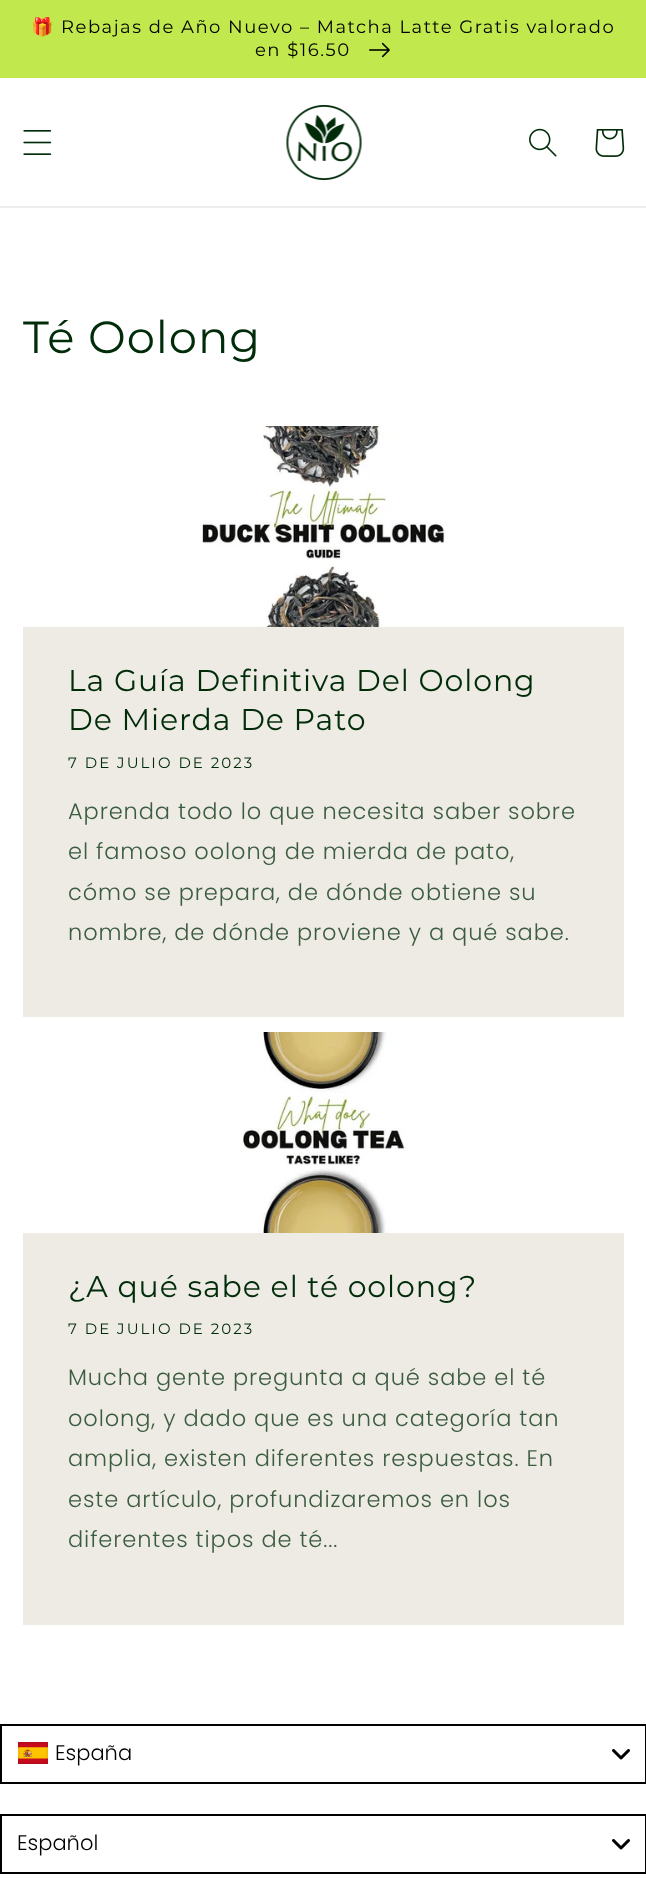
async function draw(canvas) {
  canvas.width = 646
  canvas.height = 1890
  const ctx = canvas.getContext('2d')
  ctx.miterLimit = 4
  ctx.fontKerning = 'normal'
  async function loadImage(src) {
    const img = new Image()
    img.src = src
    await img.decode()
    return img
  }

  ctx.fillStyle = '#fff'
  ctx.fillRect(0, 0, 646, 1890)
  ctx.fillStyle = '#c2e851'
  ctx.fillRect(0, 77, 646, 1)
  ctx.fillStyle = '#c1e84d'
  ctx.fillRect(0, 0, 646, 77)
  ctx.letterSpacing = '1.5px'
  ctx.font = '18px Noto Color Emoji'
  ctx.fillStyle = '#000'
  ctx.fillText('🎁', 31, 33)
  ctx.font = '18px Montserrat'
  ctx.fillText('Rebajas de Año Nuevo – Matcha Latte Gratis valorado', 61, 33)
  ctx.fillText('en $16.50', 255, 56)
  ctx.drawImage(await loadImage('image0.png'), 369, 42, 21, 16)
  ctx.fillStyle = '#ebeeeb'
  ctx.fillRect(0, 206, 646, 2)
  ctx.drawImage(await loadImage('image1.png'), 23, 130, 29, 25)
  ctx.drawImage(await loadImage('image2.png'), 286, 105, 76, 75)
  ctx.drawImage(await loadImage('image3.png'), 529, 128, 28, 29)
  ctx.drawImage(await loadImage('image4.png'), 595, 129, 30, 28)
  ctx.letterSpacing = '0.9px'
  ctx.font = '45px Montserrat'
  ctx.fillStyle = '#012c0a'
  ctx.fillText('Té Oolong', 23, 353)
  ctx.fillStyle = '#eeebe4'
  ctx.fillRect(23, 627, 601, 390)
  ctx.drawImage(await loadImage('image5.png'), 23, 426, 601, 201)
  ctx.font = '30px Montserrat'
  ctx.fillStyle = '#012c0a'
  ctx.fillText('La Guía Definitiva Del Oolong', 68, 691)
  ctx.fillText('De Mierda De Pato', 68, 730)
  ctx.letterSpacing = '2px'
  ctx.font = '15px Montserrat'
  ctx.fillText('7 DE JULIO DE 2023', 68, 768)
  ctx.letterSpacing = '0.9px'
  ctx.font = '300 22.5px Poppins'
  ctx.fillStyle = '#3c5c41'
  ctx.fillText('Aprenda todo lo que necesita saber sobre', 68, 819)
  ctx.fillText('el famoso oolong de mierda de pato,', 68, 859)
  ctx.fillText('cómo se prepara, de dónde obtiene su', 68, 900)
  ctx.fillText('nombre, de dónde proviene y a qué sabe.', 68, 940)
  ctx.fillStyle = '#eeebe4'
  ctx.fillRect(23, 1233, 601, 392)
  ctx.drawImage(await loadImage('image6.png'), 23, 1032, 601, 201)
  ctx.font = '30px Montserrat'
  ctx.fillStyle = '#012c0a'
  ctx.fillText('¿A qué sabe el té oolong?', 68, 1297)
  ctx.letterSpacing = '2px'
  ctx.font = '15px Montserrat'
  ctx.fillText('7 DE JULIO DE 2023', 68, 1334)
  ctx.letterSpacing = '0.9px'
  ctx.font = '300 22.5px Poppins'
  ctx.fillStyle = '#3c5c41'
  ctx.fillText('Mucha gente pregunta a qué sabe el té', 68, 1385)
  ctx.fillText('oolong, y dado que es una categoría tan', 68, 1426)
  ctx.fillText('amplia, existen diferentes respuestas. En', 68, 1466)
  ctx.fillText('este artículo, profundizaremos en los', 68, 1507)
  ctx.fillText('diferentes tipos de té...', 68, 1547)
  ctx.drawImage(await loadImage('image7.png'), 612, 1749, 18, 11)
  ctx.strokeStyle = '#000'
  ctx.lineWidth = 2
  ctx.strokeRect(1, 1725, 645, 58)
  ctx.drawImage(await loadImage('image8.png'), 18, 1742, 30, 22)
  ctx.strokeStyle = '#0000000d'
  ctx.strokeRect(19, 1743, 28, 20)
  ctx.letterSpacing = '0px'
  ctx.font = '300 21px Poppins'
  ctx.fillStyle = '#000'
  ctx.fillText('España', 55, 1760)
  ctx.drawImage(await loadImage('image7.png'), 612, 1839, 18, 11)
  ctx.strokeStyle = '#000'
  ctx.strokeRect(1, 1815, 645, 58)
  ctx.fillText('Español', 17, 1850)
}

draw(document.querySelector('canvas'))
